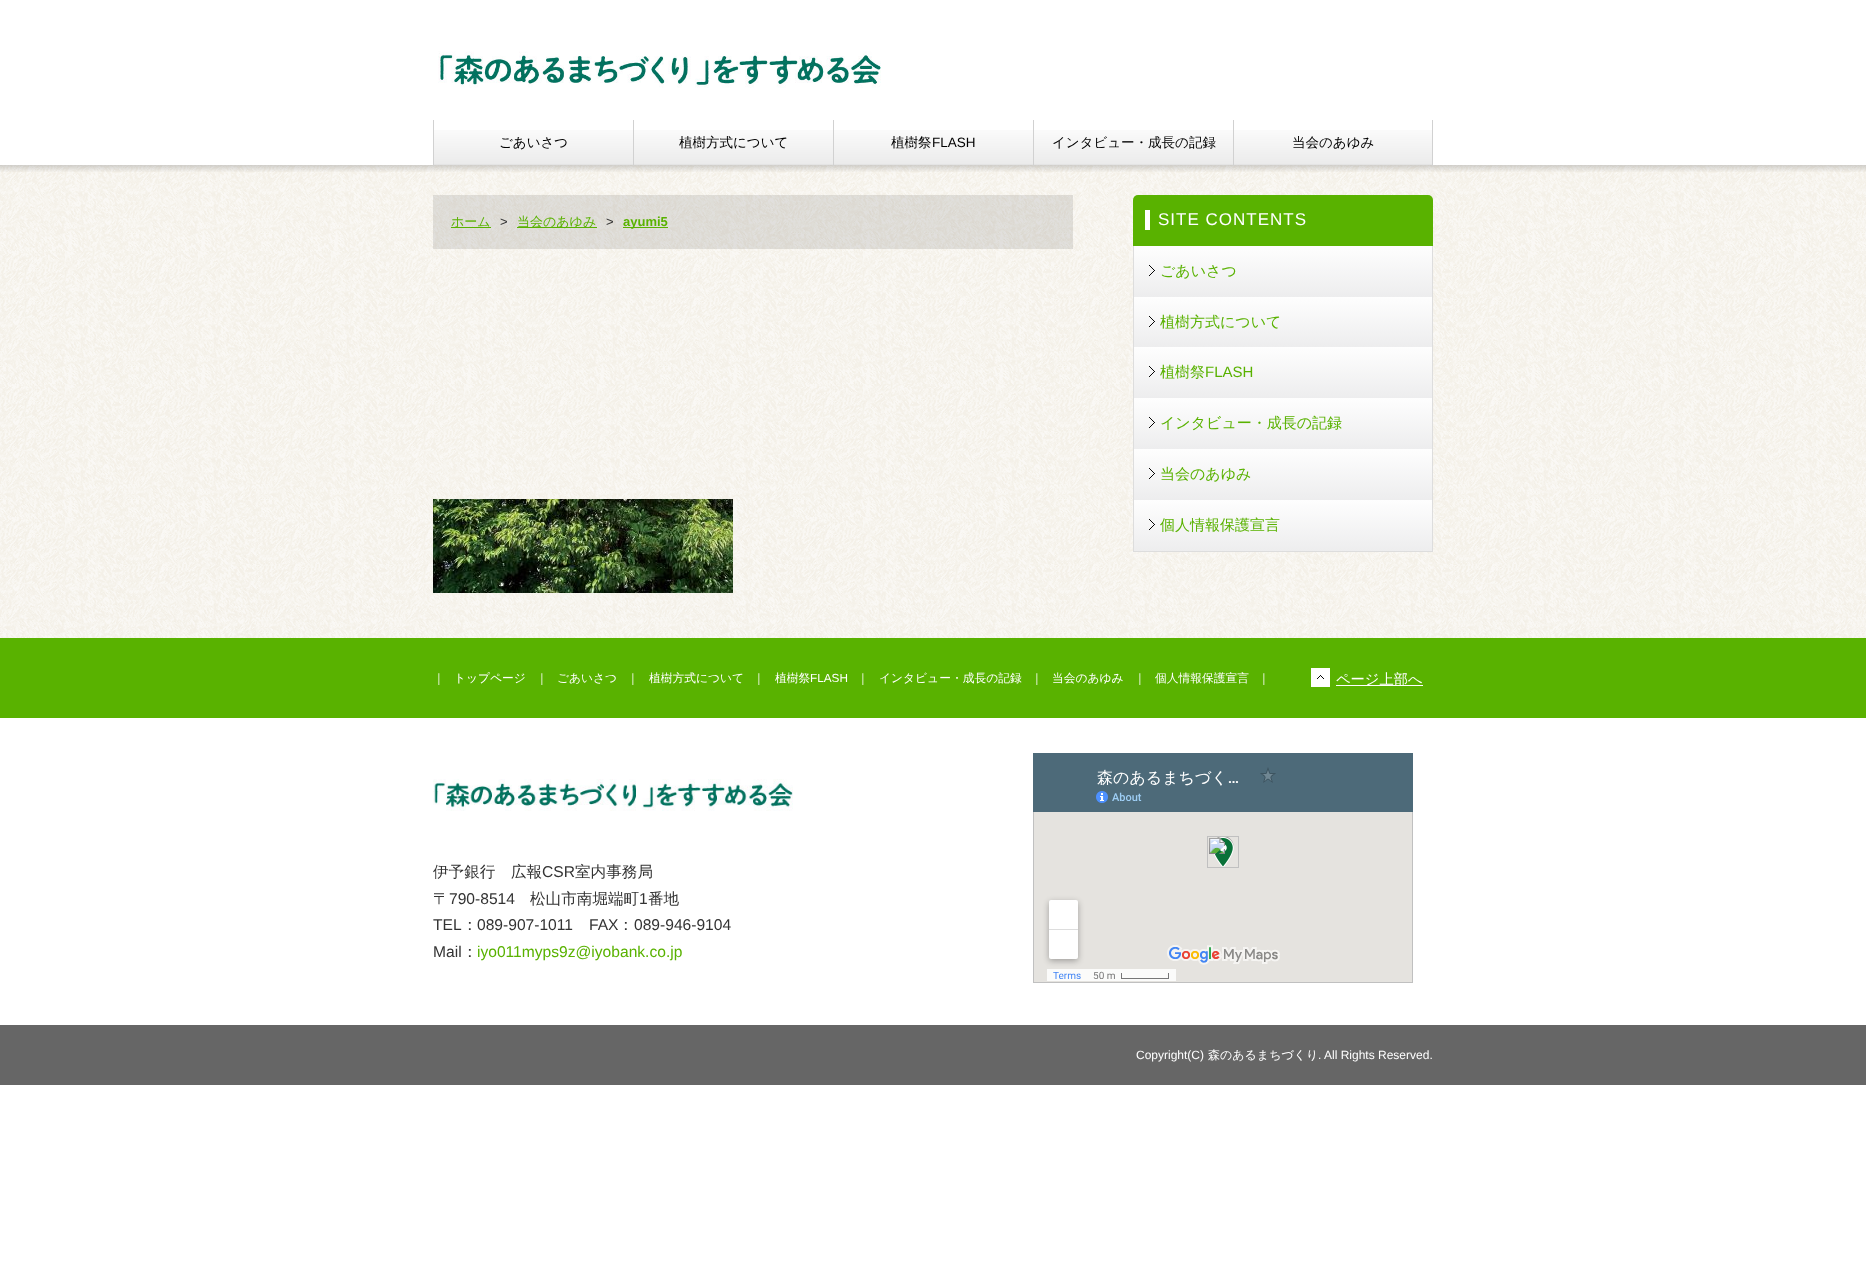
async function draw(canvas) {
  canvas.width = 1866
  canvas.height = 1276
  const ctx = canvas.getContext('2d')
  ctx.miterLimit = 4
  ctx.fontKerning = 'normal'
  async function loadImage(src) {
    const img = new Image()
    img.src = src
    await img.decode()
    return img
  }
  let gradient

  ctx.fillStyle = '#fff'
  ctx.fillRect(0, 0, 1866, 1276)
  ctx.drawImage(await loadImage('image0.png'), 438, 51, 443, 37)
  ctx.drawImage(await loadImage('image4.png'), 0, 166, 1866, 472)
  ctx.drawImage(await loadImage('image1.png'), 0, 165, 1866, 7)
  ctx.drawImage(await loadImage('image2.png'), 434, 130, 199, 35)
  ctx.fillStyle = '#d1d1d1'
  ctx.fillRect(433, 120, 1, 46)
  ctx.font = '500 13.5px WenQuanYi Zen Hei'
  ctx.fillStyle = '#000'
  ctx.fillText('ごあいさつ', 499, 147)
  ctx.drawImage(await loadImage('image2.png'), 634, 130, 199, 35)
  ctx.fillStyle = '#d1d1d1'
  ctx.fillRect(633, 120, 1, 46)
  ctx.fillStyle = '#000'
  ctx.fillText('植樹方式について', 679, 147)
  ctx.drawImage(await loadImage('image2.png'), 834, 130, 199, 35)
  ctx.fillStyle = '#d1d1d1'
  ctx.fillRect(833, 120, 1, 46)
  ctx.fillStyle = '#000'
  ctx.fillText('植樹祭', 891, 147)
  ctx.font = '13.5px Liberation Sans'
  ctx.fillText('FLASH', 932, 147)
  ctx.drawImage(await loadImage('image2.png'), 1034, 130, 199, 35)
  ctx.fillStyle = '#d1d1d1'
  ctx.fillRect(1033, 120, 1, 46)
  ctx.font = '500 13.5px WenQuanYi Zen Hei'
  ctx.fillStyle = '#000'
  ctx.fillText('インタビュー・成長の記録', 1052, 147)
  ctx.drawImage(await loadImage('image3.png'), 1234, 130, 198, 35)
  ctx.fillStyle = '#d1d1d1'
  ctx.fillRect(1432, 120, 1, 46)
  ctx.fillRect(1233, 120, 1, 46)
  ctx.fillStyle = '#000'
  ctx.fillText('当会のあゆみ', 1292, 147)
  ctx.fillStyle = '#0a0a0a1a'
  ctx.fillRect(433, 195, 640, 54)
  ctx.fillStyle = '#59b200'
  ctx.fillRect(451, 227, 40, 1)
  ctx.font = '500 13px WenQuanYi Zen Hei'
  ctx.fillText('ホーム', 451, 226)
  ctx.font = '13px Liberation Sans'
  ctx.fillStyle = '#333'
  ctx.fillText('>', 500, 226)
  ctx.fillStyle = '#59b200'
  ctx.fillRect(517, 227, 80, 1)
  ctx.font = '500 13px WenQuanYi Zen Hei'
  ctx.fillText('当会のあゆみ', 517, 226)
  ctx.font = '13px Liberation Sans'
  ctx.fillStyle = '#333'
  ctx.fillText('>', 606, 226)
  ctx.fillStyle = '#59b200'
  ctx.fillRect(623, 227, 45, 1)
  ctx.font = 'bold 13px Liberation Sans'
  ctx.fillText('ayumi5', 623, 226)
  ctx.drawImage(await loadImage('image5.png'), 433, 499, 300, 94)
  ctx.beginPath()
  ctx.roundRect(1133, 195, 300, 51, [5, 5, 0, 0])
  ctx.fill()
  ctx.fillStyle = '#fff'
  ctx.fillRect(1145, 210, 5, 20)
  ctx.letterSpacing = '1px'
  ctx.font = '17px Liberation Sans'
  ctx.fillText('SITE CONTENTS', 1158, 225)
  ctx.fillStyle = '#ddd'
  ctx.fillRect(1432, 246, 1, 306)
  ctx.fillRect(1133, 551, 300, 1)
  ctx.fillRect(1133, 246, 1, 306)
  gradient = ctx.createLinearGradient(1283, 246, 1283, 297)
  gradient.addColorStop(0, '#fefefe')
  gradient.addColorStop(1, '#ededee')
  ctx.fillStyle = gradient
  ctx.fillRect(1134, 246, 298, 51)
  ctx.drawImage(await loadImage('image6.png'), 1149, 265, 6, 11)
  ctx.letterSpacing = '0px'
  ctx.font = '500 15px WenQuanYi Zen Hei'
  ctx.fillStyle = '#59b200'
  ctx.fillText('ごあいさつ', 1160, 276)
  gradient = ctx.createLinearGradient(1283, 297, 1283, 347)
  gradient.addColorStop(0, '#fefefe')
  gradient.addColorStop(1, '#ededee')
  ctx.fillStyle = gradient
  ctx.fillRect(1134, 297, 298, 50)
  ctx.drawImage(await loadImage('image7.png'), 1149, 316, 6, 11)
  ctx.fillStyle = '#59b200'
  ctx.fillText('植樹方式について', 1160, 327)
  gradient = ctx.createLinearGradient(1283, 347, 1283, 398)
  gradient.addColorStop(0, '#fefefe')
  gradient.addColorStop(1, '#ededee')
  ctx.fillStyle = gradient
  ctx.fillRect(1134, 347, 298, 51)
  ctx.drawImage(await loadImage('image6.png'), 1149, 366, 6, 11)
  ctx.fillStyle = '#59b200'
  ctx.fillText('植樹祭', 1160, 377)
  ctx.font = '15px Liberation Sans'
  ctx.fillText('FLASH', 1205, 377)
  gradient = ctx.createLinearGradient(1283, 398, 1283, 449)
  gradient.addColorStop(0, '#fefefe')
  gradient.addColorStop(1, '#ededee')
  ctx.fillStyle = gradient
  ctx.fillRect(1134, 398, 298, 51)
  ctx.drawImage(await loadImage('image6.png'), 1149, 417, 6, 11)
  ctx.font = '500 15px WenQuanYi Zen Hei'
  ctx.fillStyle = '#59b200'
  ctx.fillText('インタビュー・成長の記録', 1160, 428)
  gradient = ctx.createLinearGradient(1283, 449, 1283, 500)
  gradient.addColorStop(0, '#fefefe')
  gradient.addColorStop(1, '#ededee')
  ctx.fillStyle = gradient
  ctx.fillRect(1134, 449, 298, 51)
  ctx.drawImage(await loadImage('image6.png'), 1149, 468, 6, 11)
  ctx.fillStyle = '#59b200'
  ctx.fillText('当会のあゆみ', 1160, 479)
  gradient = ctx.createLinearGradient(1283, 500, 1283, 551)
  gradient.addColorStop(0, '#fefefe')
  gradient.addColorStop(1, '#ededee')
  ctx.fillStyle = gradient
  ctx.fillRect(1134, 500, 298, 51)
  ctx.drawImage(await loadImage('image6.png'), 1149, 519, 6, 11)
  ctx.fillStyle = '#59b200'
  ctx.fillText('個人情報保護宣言', 1160, 530)
  ctx.fillRect(0, 638, 1866, 80)
  ctx.font = '500 11.75px WenQuanYi Zen Hei'
  ctx.fillStyle = '#fff'
  ctx.fillText('｜', 433, 682)
  ctx.fillText('トップページ', 454, 682)
  ctx.fillText('｜', 536, 682)
  ctx.fillText('ごあいさつ', 557, 682)
  ctx.fillText('｜', 627, 682)
  ctx.fillText('植樹方式について', 649, 682)
  ctx.fillText('｜', 753, 682)
  ctx.fillText('植樹祭', 775, 682)
  ctx.font = '11.75px Liberation Sans'
  ctx.fillText('FLASH', 810, 682)
  ctx.font = '500 11.75px WenQuanYi Zen Hei'
  ctx.fillText('｜', 857, 682)
  ctx.fillText('インタビュー・成長の記録', 879, 682)
  ctx.fillText('｜', 1031, 682)
  ctx.fillText('当会のあゆみ', 1052, 682)
  ctx.fillText('｜', 1134, 682)
  ctx.fillText('個人情報保護宣言', 1155, 682)
  ctx.fillText('｜', 1258, 682)
  ctx.drawImage(await loadImage('image8.png'), 1311, 668, 19, 19)
  ctx.fillRect(1336, 685, 87, 1)
  ctx.font = '500 14.25px WenQuanYi Zen Hei'
  ctx.fillText('ページ上部へ', 1336, 684)
  ctx.drawImage(await loadImage('image9.png'), 433, 779, 360, 32)
  ctx.font = '500 15.6px WenQuanYi Zen Hei'
  ctx.fillStyle = '#333'
  ctx.fillText('伊予銀行　広報', 433, 877)
  ctx.font = '15.6px Liberation Sans'
  ctx.fillText('CSR', 542, 877)
  ctx.font = '500 15.6px WenQuanYi Zen Hei'
  ctx.fillText('室内事務局', 575, 877)
  ctx.fillText('〒', 433, 904)
  ctx.font = '15.6px Liberation Sans'
  ctx.fillText('790-8514', 449, 904)
  ctx.font = '500 15.6px WenQuanYi Zen Hei'
  ctx.fillText('松山市南堀端町', 530, 904)
  ctx.font = '15.6px Liberation Sans'
  ctx.fillText('1', 639, 904)
  ctx.font = '500 15.6px WenQuanYi Zen Hei'
  ctx.fillText('番地', 648, 904)
  ctx.font = '15.6px Liberation Sans'
  ctx.fillText('TEL', 433, 930)
  ctx.font = '500 15.6px WenQuanYi Zen Hei'
  ctx.fillText('：', 462, 930)
  ctx.font = '15.6px Liberation Sans'
  ctx.fillText('089-907-1011', 477, 930)
  ctx.fillText('FAX', 589, 930)
  ctx.font = '500 15.6px WenQuanYi Zen Hei'
  ctx.fillText('：', 618, 930)
  ctx.font = '15.6px Liberation Sans'
  ctx.fillText('089-946-9104', 634, 930)
  ctx.fillText('Mail', 433, 957)
  ctx.font = '500 15.6px WenQuanYi Zen Hei'
  ctx.fillText('：', 462, 957)
  ctx.font = '15.6px Liberation Sans'
  ctx.fillStyle = '#59b200'
  ctx.fillText('iyo011myps9z@iyobank.co.jp', 477, 957)
  ctx.drawImage(await loadImage('image10.png'), 1033, 753, 380, 230)
  ctx.fillStyle = '#666'
  ctx.fillRect(0, 1025, 1866, 60)
  ctx.font = '12px Liberation Sans'
  ctx.fillStyle = '#fff'
  ctx.fillText('Copyright(C)', 1136, 1059)
  ctx.font = '500 12px WenQuanYi Zen Hei'
  ctx.fillText('森のあるまちづくり', 1208, 1059)
  ctx.font = '12px Liberation Sans'
  ctx.fillText('. All Rights Reserved.', 1318, 1059)
}

draw(document.querySelector('canvas'))
